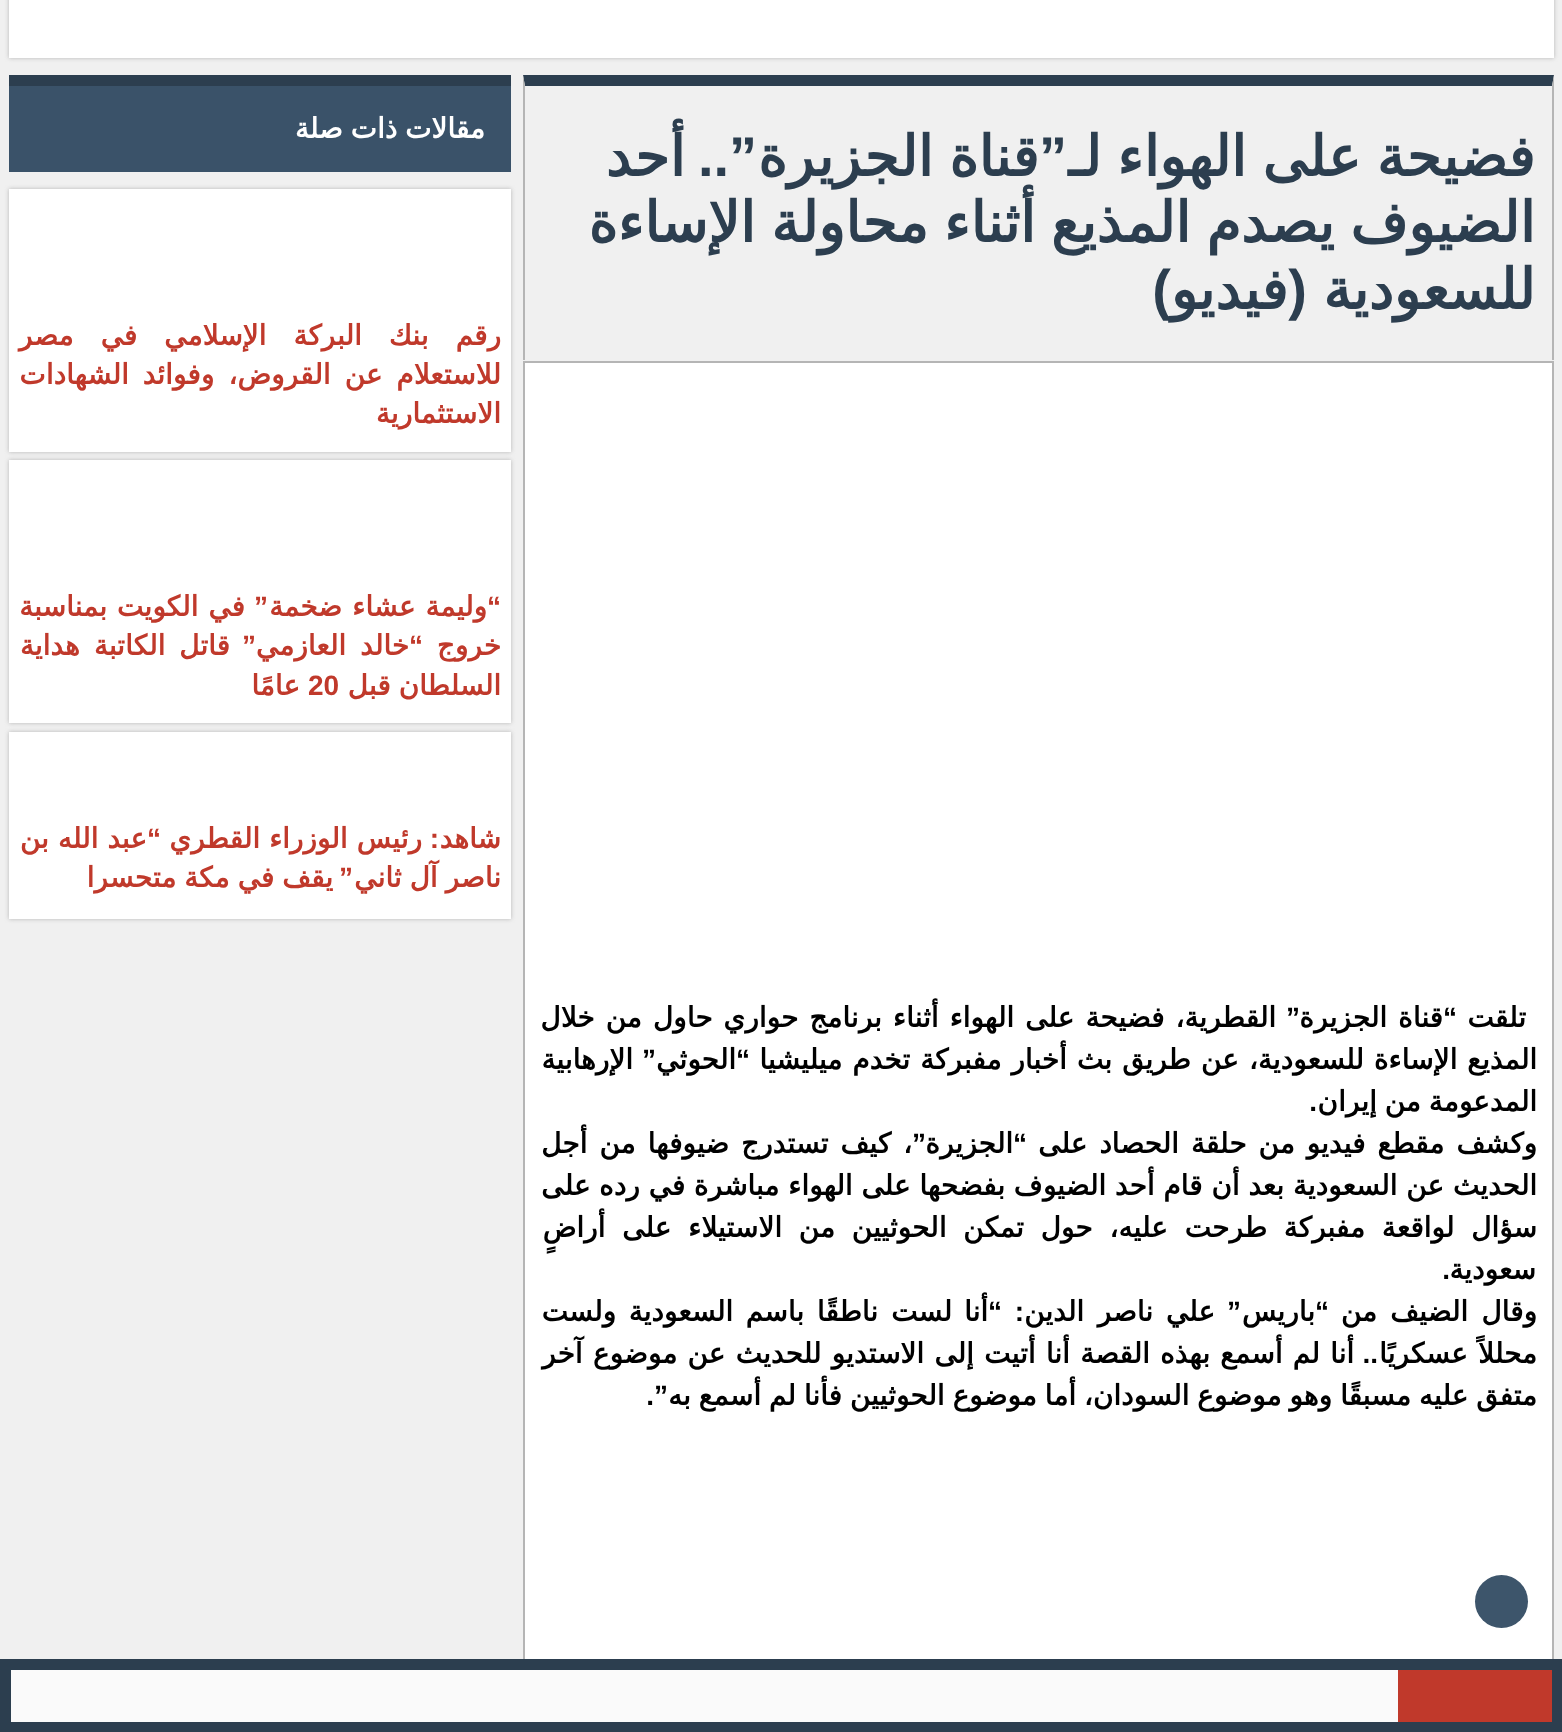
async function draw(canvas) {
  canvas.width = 1562
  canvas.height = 1732
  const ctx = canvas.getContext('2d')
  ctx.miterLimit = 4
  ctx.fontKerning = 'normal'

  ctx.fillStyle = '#f0f0f0'
  ctx.fillRect(0, 0, 1562, 1732)
  ctx.fillStyle = '#b5b5b5'
  ctx.filter = 'blur(2px)'
  ctx.beginPath()
  ctx.rect(9, -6, 1545, 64)
  ctx.fill()
  ctx.filter = 'none'
  ctx.fillStyle = '#fff'
  ctx.fillRect(9, 0, 1545, 58)
  ctx.fillStyle = '#2c3e4f'
  ctx.beginPath()
  ctx.moveTo(523, 75)
  ctx.lineTo(1554, 75)
  ctx.lineTo(1552, 86)
  ctx.lineTo(525, 86)
  ctx.closePath()
  ctx.fill()
  ctx.fillStyle = '#b5b5b5'
  ctx.beginPath()
  ctx.moveTo(1554, 75)
  ctx.lineTo(1554, 360)
  ctx.lineTo(1552, 360)
  ctx.lineTo(1552, 86)
  ctx.closePath()
  ctx.fill()
  ctx.beginPath()
  ctx.moveTo(523, 360)
  ctx.lineTo(523, 75)
  ctx.lineTo(525, 86)
  ctx.lineTo(525, 360)
  ctx.closePath()
  ctx.fill()
  ctx.wordSpacing = '-2px'
  ctx.direction = 'rtl'
  ctx.font = 'bold 56px DejaVu Sans'
  ctx.fillStyle = '#2c3e4f'
  ctx.fillText('فضيحة على الهواء لـ', 1535, 176)
  ctx.wordSpacing = '0px'
  ctx.font = 'bold 56px Liberation Sans'
  ctx.fillText('”', 1067, 176)
  ctx.wordSpacing = '-2px'
  ctx.font = 'bold 56px DejaVu Sans'
  ctx.fillText('قناة الجزيرة', 1039, 176)
  ctx.wordSpacing = '0px'
  ctx.font = 'bold 56px Liberation Sans'
  ctx.fillText('”..', 757, 176)
  ctx.font = 'bold 56px DejaVu Sans'
  ctx.fillText('أحد', 685, 176)
  ctx.wordSpacing = '-2.25px'
  ctx.fillText('الضيوف يصدم المذيع أثناء محاولة الإساءة', 1535, 242)
  ctx.wordSpacing = '0px'
  ctx.fillText('للسعودية', 1535, 309)
  ctx.font = 'bold 56px Liberation Sans'
  ctx.fillText('(', 1307, 309)
  ctx.fillText(')', 1171, 309)
  ctx.font = 'bold 56px DejaVu Sans'
  ctx.fillText('فيديو', 1288, 309)
  ctx.fillStyle = '#fff'
  ctx.fillRect(525, 363, 1027, 1296)
  ctx.strokeStyle = '#b5b5b5'
  ctx.lineWidth = 2
  ctx.strokeRect(524, 362, 1029, 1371)
  ctx.font = 'bold 28px DejaVu Sans'
  ctx.fillStyle = '#000'
  ctx.fillText('تلقت', 1526, 1027)
  ctx.font = 'bold 28px Liberation Sans'
  ctx.fillText('“', 1457, 1027)
  ctx.wordSpacing = '2px'
  ctx.font = 'bold 28px DejaVu Sans'
  ctx.fillText('قناة الجزيرة', 1443, 1027)
  ctx.wordSpacing = '0px'
  ctx.font = 'bold 28px Liberation Sans'
  ctx.fillText('”', 1300, 1027)
  ctx.wordSpacing = '2px'
  ctx.font = 'bold 28px DejaVu Sans'
  ctx.fillText('القطرية، فضيحة على الهواء أثناء برنامج حواري حاول من خلال', 1276, 1027)
  ctx.wordSpacing = '1px'
  ctx.fillText('المذيع الإساءة للسعودية، عن طريق بث أخبار مفبركة تخدم ميليشيا', 1537, 1069)
  ctx.wordSpacing = '0px'
  ctx.font = 'bold 28px Liberation Sans'
  ctx.fillText('“', 750, 1069)
  ctx.font = 'bold 28px DejaVu Sans'
  ctx.fillText('الحوثي', 736, 1069)
  ctx.font = 'bold 28px Liberation Sans'
  ctx.fillText('”', 656, 1069)
  ctx.font = 'bold 28px DejaVu Sans'
  ctx.fillText('الإرهابية', 633, 1069)
  ctx.wordSpacing = '-1.1px'
  ctx.fillText('المدعومة من إيران', 1537, 1111)
  ctx.wordSpacing = '0px'
  ctx.font = 'bold 28px Liberation Sans'
  ctx.fillText('.', 1317, 1111)
  ctx.wordSpacing = '3px'
  ctx.font = 'bold 28px DejaVu Sans'
  ctx.fillText('وكشف مقطع فيديو من حلقة الحصاد على', 1537, 1153)
  ctx.wordSpacing = '0px'
  ctx.font = 'bold 28px Liberation Sans'
  ctx.fillText('“', 1027, 1153)
  ctx.font = 'bold 28px DejaVu Sans'
  ctx.fillText('الجزيرة', 1013, 1153)
  ctx.font = 'bold 28px Liberation Sans'
  ctx.fillText('”', 926, 1153)
  ctx.wordSpacing = '3px'
  ctx.font = 'bold 28px DejaVu Sans'
  ctx.fillText('، كيف تستدرج ضيوفها من أجل', 912, 1153)
  ctx.wordSpacing = '-0.25px'
  ctx.fillText('الحديث عن السعودية بعد أن قام أحد الضيوف بفضحها على الهواء مباشرة في رده على', 1537, 1195)
  ctx.wordSpacing = '7.75px'
  ctx.fillText('سؤال لواقعة مفبركة طرحت عليه، حول تمكن الحوثيين من الاستيلاء على أراضٍ', 1537, 1237)
  ctx.wordSpacing = '0px'
  ctx.fillText('سعودية', 1536, 1279)
  ctx.font = 'bold 28px Liberation Sans'
  ctx.fillText('.', 1450, 1279)
  ctx.font = 'bold 28px DejaVu Sans'
  ctx.fillText('وقال', 1537, 1321)
  ctx.fillText('الضيف', 1468, 1321)
  ctx.font = 'bold 28px Liberation Sans'
  ctx.fillText('“', 1329, 1321)
  ctx.font = 'bold 28px DejaVu Sans'
  ctx.fillText('باريس', 1315, 1321)
  ctx.font = 'bold 28px Liberation Sans'
  ctx.fillText('”', 1241, 1321)
  ctx.font = 'bold 28px DejaVu Sans'
  ctx.fillText('علي', 1215, 1321)
  ctx.fillText('ناصر', 1153, 1321)
  ctx.fillText('الدين', 1084, 1321)
  ctx.wordSpacing = '5px'
  ctx.font = 'bold 28px Liberation Sans'
  ctx.fillText(': “', 1024, 1321)
  ctx.wordSpacing = '0px'
  ctx.font = 'bold 28px DejaVu Sans'
  ctx.fillText('أنا', 988, 1321)
  ctx.fillText('لست', 952, 1321)
  ctx.fillText('ناطقًا', 878, 1321)
  ctx.fillText('باسم', 804, 1321)
  ctx.fillText('السعودية', 733, 1321)
  ctx.fillText('ولست', 616, 1321)
  ctx.fillText('من', 1377, 1321)
  ctx.wordSpacing = '1.25px'
  ctx.fillText('محللاً عسكريًا', 1537, 1363)
  ctx.wordSpacing = '0px'
  ctx.font = 'bold 28px Liberation Sans'
  ctx.fillText('..', 1378, 1363)
  ctx.wordSpacing = '1.25px'
  ctx.font = 'bold 28px DejaVu Sans'
  ctx.fillText('أنا لم أسمع بهذه القصة أنا أتيت إلى الاستديو للحديث عن موضوع آخر', 1354, 1363)
  ctx.wordSpacing = '-1.1px'
  ctx.fillText('متفق عليه مسبقًا وهو موضوع السودان، أما موضوع الحوثيين فأنا لم أسمع به', 1537, 1405)
  ctx.wordSpacing = '0px'
  ctx.font = 'bold 28px Liberation Sans'
  ctx.fillText('”.', 668, 1405)
  ctx.fillStyle = '#3a5269'
  ctx.fillRect(9, 86, 502, 86)
  ctx.fillStyle = '#2c3e4f'
  ctx.fillRect(9, 75, 502, 11)
  ctx.wordSpacing = '-1.1px'
  ctx.font = 'bold 28px DejaVu Sans'
  ctx.fillStyle = '#fff'
  ctx.fillText('مقالات ذات صلة', 485, 138)
  ctx.fillStyle = '#b5b5b5'
  ctx.filter = 'blur(2px)'
  ctx.beginPath()
  ctx.rect(9, 189, 502, 263)
  ctx.fill()
  ctx.filter = 'none'
  ctx.fillStyle = '#fff'
  ctx.fillRect(9, 189, 502, 263)
  ctx.wordSpacing = '18px'
  ctx.fillStyle = '#c0392b'
  ctx.fillText('رقم بنك البركة اﻹسلامي في مصر', 501, 345)
  ctx.wordSpacing = '5px'
  ctx.fillText('للاستعلام عن القروض، وفوائد الشهادات', 501, 384)
  ctx.wordSpacing = '0px'
  ctx.fillText('الاستثمارية', 501, 423)
  ctx.fillStyle = '#b5b5b5'
  ctx.filter = 'blur(2px)'
  ctx.beginPath()
  ctx.rect(9, 460, 502, 263)
  ctx.fill()
  ctx.filter = 'none'
  ctx.fillStyle = '#fff'
  ctx.fillRect(9, 460, 502, 263)
  ctx.font = 'bold 28px Liberation Sans'
  ctx.fillStyle = '#c0392b'
  ctx.fillText('“', 501, 616)
  ctx.wordSpacing = '1px'
  ctx.font = 'bold 28px DejaVu Sans'
  ctx.fillText('وليمة عشاء ضخمة', 487, 616)
  ctx.wordSpacing = '0px'
  ctx.font = 'bold 28px Liberation Sans'
  ctx.fillText('”', 268, 616)
  ctx.wordSpacing = '1px'
  ctx.font = 'bold 28px DejaVu Sans'
  ctx.fillText('في الكويت بمناسبة', 245, 616)
  ctx.wordSpacing = '0px'
  ctx.fillText('خروج', 501, 655)
  ctx.font = 'bold 28px Liberation Sans'
  ctx.fillText('“', 423, 655)
  ctx.wordSpacing = '5px'
  ctx.font = 'bold 28px DejaVu Sans'
  ctx.fillText('خالد العازمي', 409, 655)
  ctx.wordSpacing = '0px'
  ctx.font = 'bold 28px Liberation Sans'
  ctx.fillText('”', 256, 655)
  ctx.wordSpacing = '5px'
  ctx.font = 'bold 28px DejaVu Sans'
  ctx.fillText('قاتل الكاتبة هداية', 230, 655)
  ctx.wordSpacing = '-1.1px'
  ctx.fillText('السلطان قبل', 501, 695)
  ctx.wordSpacing = '0px'
  ctx.direction = 'ltr'
  ctx.font = 'bold 28px Liberation Sans'
  ctx.fillText('20', 308, 695)
  ctx.direction = 'rtl'
  ctx.font = 'bold 28px DejaVu Sans'
  ctx.fillText('عامًا', 300, 695)
  ctx.fillStyle = '#b5b5b5'
  ctx.filter = 'blur(2px)'
  ctx.beginPath()
  ctx.rect(9, 732, 502, 187)
  ctx.fill()
  ctx.filter = 'none'
  ctx.fillStyle = '#fff'
  ctx.fillRect(9, 732, 502, 187)
  ctx.fillStyle = '#c0392b'
  ctx.fillText('شاهد', 501, 848)
  ctx.font = 'bold 28px Liberation Sans'
  ctx.fillText(':', 439, 848)
  ctx.font = 'bold 28px DejaVu Sans'
  ctx.fillText('رئيس الوزراء القطري', 422, 848)
  ctx.font = 'bold 28px Liberation Sans'
  ctx.fillText('“', 161, 848)
  ctx.font = 'bold 28px DejaVu Sans'
  ctx.fillText('عبد الله بن', 147, 848)
  ctx.wordSpacing = '-1px'
  ctx.fillText('ناصر آل ثاني', 501, 887)
  ctx.wordSpacing = '0px'
  ctx.font = 'bold 28px Liberation Sans'
  ctx.fillText('”', 353, 887)
  ctx.wordSpacing = '-1px'
  ctx.font = 'bold 28px DejaVu Sans'
  ctx.fillText('يقف في مكة متحسرا', 333, 887)
  ctx.fillStyle = '#2c3e4f'
  ctx.fillRect(0, 1659, 1562, 73)
  ctx.fillStyle = '#c0392b'
  ctx.fillRect(1398, 1670, 154, 52)
  ctx.fillStyle = '#fafafa'
  ctx.fillRect(11, 1670, 1387, 52)
  ctx.fillStyle = '#3d556b'
  ctx.beginPath()
  ctx.arc(1501.5, 1601.5, 26.5, 0, 2 * Math.PI)
  ctx.fill()
}

draw(document.querySelector('canvas'))
